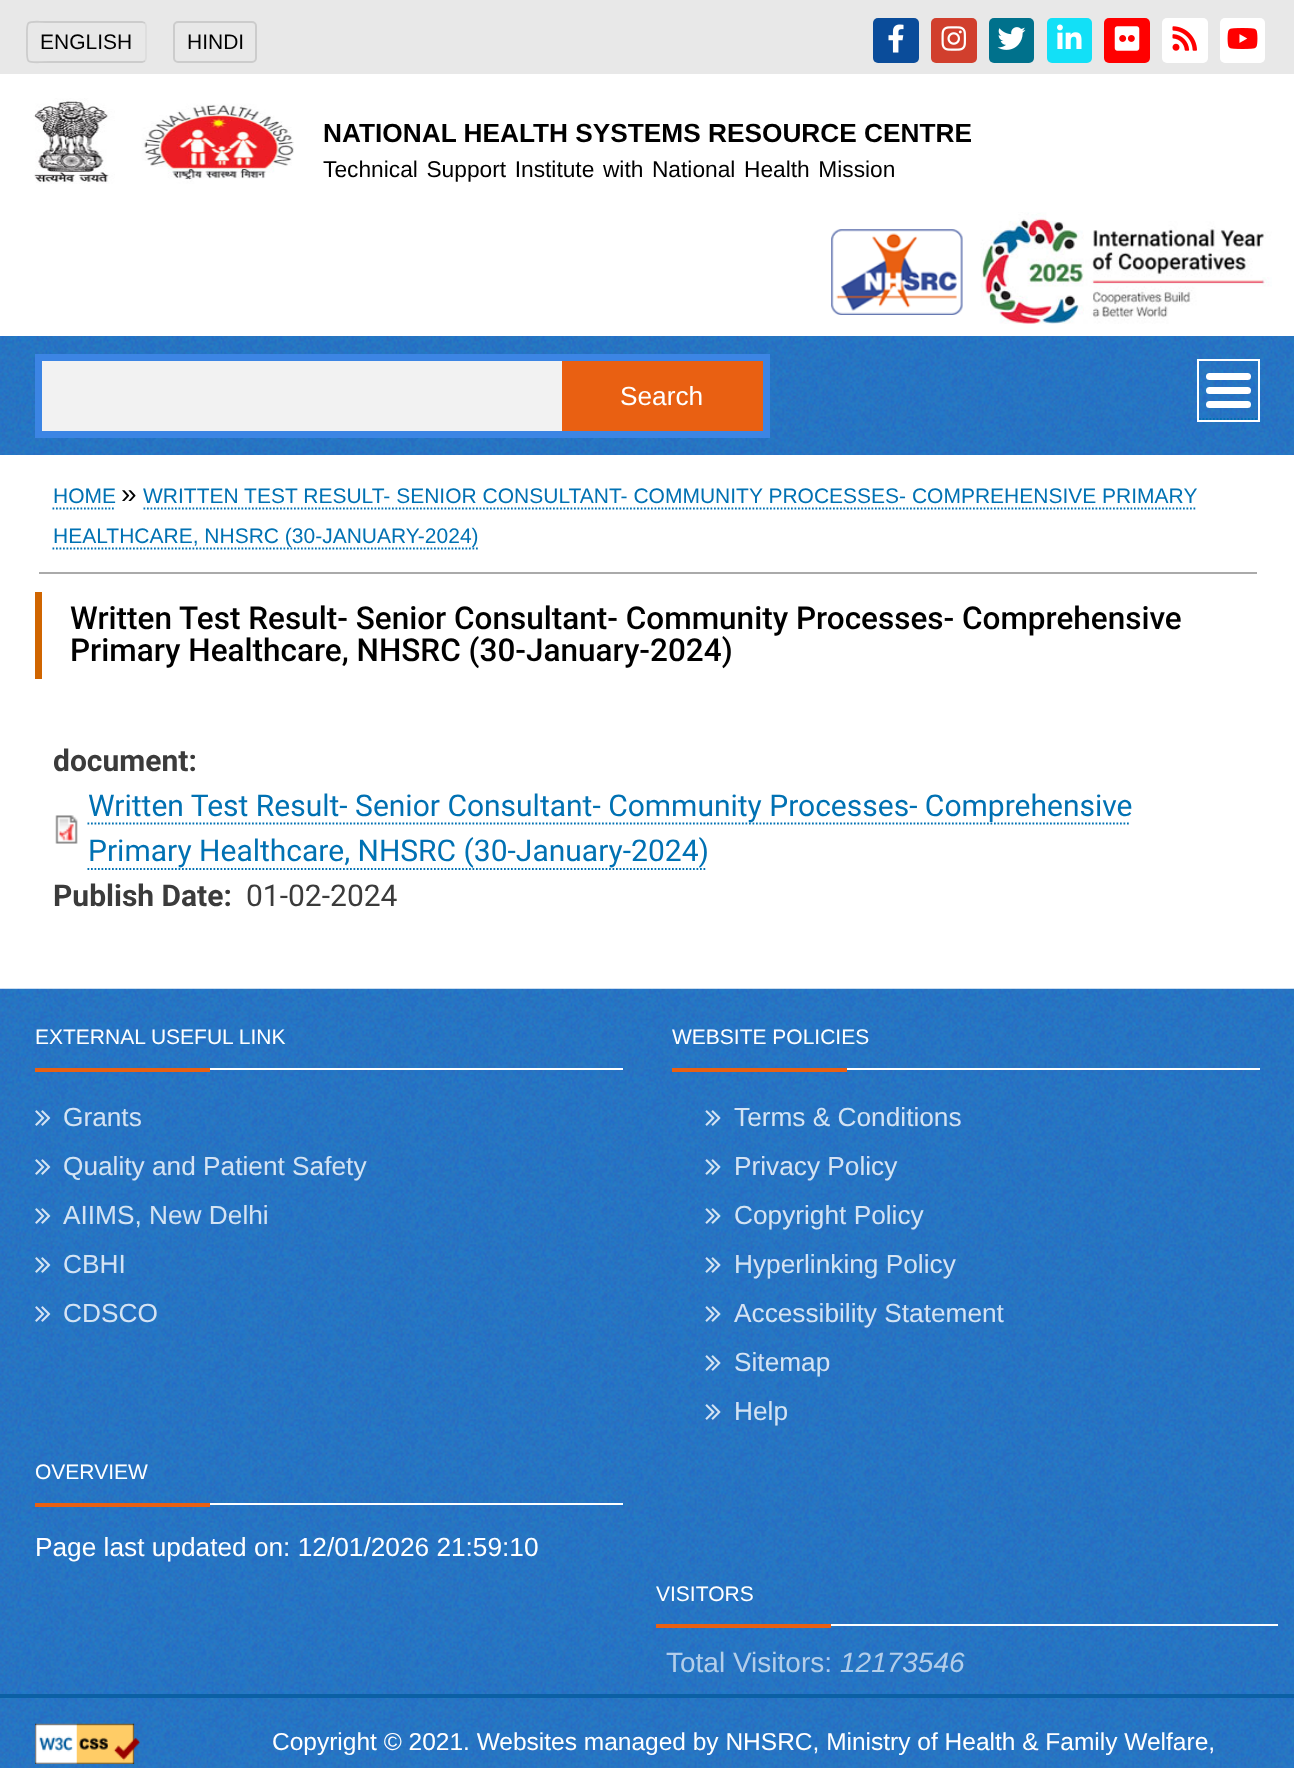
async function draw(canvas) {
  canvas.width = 1294
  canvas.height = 1768
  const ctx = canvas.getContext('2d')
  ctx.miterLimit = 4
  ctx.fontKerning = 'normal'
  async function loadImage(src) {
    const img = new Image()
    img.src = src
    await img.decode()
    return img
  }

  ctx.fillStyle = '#e8e8e8'
  ctx.fillRect(0, 0, 1294, 1768)
  ctx.beginPath()
  ctx.moveTo(145, 23)
  ctx.bezierCurveTo(145.5, 24, 146, 25, 146, 26)
  ctx.lineTo(146, 58)
  ctx.bezierCurveTo(146, 59, 145.5, 60, 145, 61)
  ctx.strokeStyle = '#ddd'
  ctx.lineWidth = 1.8
  ctx.stroke()
  ctx.beginPath()
  ctx.moveTo(145, 61)
  ctx.lineTo(142, 62)
  ctx.lineTo(50, 62)
  ctx.bezierCurveTo(24, 62, 27, 66.5, 27, 42)
  ctx.bezierCurveTo(27, 17.5, 24, 22, 50, 22)
  ctx.lineTo(142, 22)
  ctx.lineTo(145, 23)
  ctx.strokeStyle = '#ccc'
  ctx.stroke()
  ctx.font = '21px Liberation Sans'
  ctx.fillStyle = '#000'
  ctx.fillText('ENGLISH', 40, 49)
  ctx.beginPath()
  ctx.roundRect(174, 22, 82, 40, 4)
  ctx.lineWidth = 2
  ctx.stroke()
  ctx.fillText('HINDI', 187, 49)
  ctx.fillStyle = '#0a4c9a'
  ctx.beginPath()
  ctx.roundRect(873, 18, 46, 45, 5)
  ctx.fill()
  ctx.drawImage(await loadImage('image0.png'), 888, 24, 16, 29)
  ctx.fillStyle = '#d13f2d'
  ctx.beginPath()
  ctx.roundRect(931, 18, 46, 45, 5)
  ctx.fill()
  ctx.drawImage(await loadImage('image1.png'), 941, 26, 25, 25)
  ctx.fillStyle = '#00718c'
  ctx.beginPath()
  ctx.roundRect(989, 18, 45, 45, 5)
  ctx.fill()
  ctx.drawImage(await loadImage('image2.png'), 997, 27, 29, 23)
  ctx.fillStyle = '#12e0f7'
  ctx.beginPath()
  ctx.roundRect(1047, 18, 45, 45, 5)
  ctx.fill()
  ctx.drawImage(await loadImage('image3.png'), 1057, 24, 25, 25)
  ctx.fillStyle = '#f00'
  ctx.beginPath()
  ctx.roundRect(1104, 18, 46, 45, 5)
  ctx.fill()
  ctx.drawImage(await loadImage('image4.png'), 1114, 26, 26, 25)
  ctx.fillStyle = '#fff'
  ctx.beginPath()
  ctx.roundRect(1162, 18, 46, 45, 5)
  ctx.fill()
  ctx.drawImage(await loadImage('image5.png'), 1172, 26, 25, 25)
  ctx.beginPath()
  ctx.roundRect(1220, 18, 45, 45, 5)
  ctx.fill()
  ctx.drawImage(await loadImage('image6.png'), 1227, 28, 31, 21)
  ctx.fillRect(0, 74, 1294, 262)
  ctx.drawImage(await loadImage('image7.png'), 33, 98, 261, 86)
  ctx.font = 'bold 26.25px Liberation Sans'
  ctx.fillStyle = '#000'
  ctx.fillText('NATIONAL HEALTH SYSTEMS RESOURCE CENTRE', 323, 142)
  ctx.wordSpacing = '2.25px'
  ctx.font = '22.75px Liberation Sans'
  ctx.fillText('Technical Support Institute with National Health Mission', 323, 177)
  ctx.drawImage(await loadImage('image8.png'), 831, 229, 132, 86)
  ctx.drawImage(await loadImage('image9.png'), 980, 212, 292, 112)
  ctx.drawImage(await loadImage('image10.png'), 0, 336, 1294, 119)
  ctx.fillStyle = '#3c85e4'
  ctx.fillRect(35, 354, 735, 84)
  ctx.fillStyle = '#f2f2f2'
  ctx.fillRect(42, 361, 520, 70)
  ctx.fillStyle = '#e96012'
  ctx.fillRect(562, 361, 201, 70)
  ctx.wordSpacing = '0px'
  ctx.font = '26.25px Liberation Sans'
  ctx.fillStyle = '#fff'
  ctx.fillText('Search', 620, 405)
  ctx.strokeStyle = '#fff'
  ctx.strokeRect(1198, 360, 61, 61)
  ctx.beginPath()
  ctx.moveTo(1199, 419)
  ctx.lineTo(1258, 419)
  ctx.strokeStyle = '#0071b3'
  ctx.lineWidth = 1.8
  ctx.setLineDash([1.75, 1.75])
  ctx.stroke()
  ctx.beginPath()
  ctx.roundRect(1206, 373, 45, 7, 3.5)
  ctx.fill()
  ctx.beginPath()
  ctx.roundRect(1206, 387, 45, 7, 3.5)
  ctx.fill()
  ctx.beginPath()
  ctx.roundRect(1206, 401, 45, 7, 3.5)
  ctx.fill()
  ctx.fillRect(0, 455, 1294, 534)
  ctx.fillStyle = '#aaa'
  ctx.fillRect(39, 572, 1218, 2)
  ctx.font = '21px Liberation Sans'
  ctx.fillStyle = '#0071b3'
  ctx.fillText('HOME', 53, 503)
  ctx.beginPath()
  ctx.moveTo(52.5, 508.5)
  ctx.lineTo(115.5, 508.5)
  ctx.stroke()
  ctx.font = '28px Liberation Sans'
  ctx.fillStyle = '#000'
  ctx.fillText('»', 121, 503)
  ctx.font = '21px Liberation Sans'
  ctx.fillStyle = '#0071b3'
  ctx.fillText('WRITTEN TEST RESULT- SENIOR CONSULTANT- COMMUNITY PROCESSES- COMPREHENSIVE PRIMARY', 143, 503)
  ctx.beginPath()
  ctx.moveTo(143.5, 508.5)
  ctx.lineTo(1197, 508.5)
  ctx.stroke()
  ctx.beginPath()
  ctx.moveTo(52.5, 548.5)
  ctx.lineTo(478, 548.5)
  ctx.stroke()
  ctx.fillText('HEALTHCARE, NHSRC (30-JANUARY-2024)', 53, 543)
  ctx.fillStyle = '#d06500'
  ctx.fillRect(35, 592, 7, 87)
  ctx.font = '500 31.5px Roboto'
  ctx.fillStyle = '#000'
  ctx.fillText('Written Test Result- Senior Consultant- Community Processes- Comprehensive', 70, 629)
  ctx.fillText('Primary Healthcare, NHSRC (30-January-2024)', 70, 661)
  ctx.font = 'bold 30px Roboto'
  ctx.fillStyle = '#3b3b3b'
  ctx.fillText('document:', 53, 771)
  ctx.drawImage(await loadImage('image11.png'), 55, 815, 23, 29)
  ctx.beginPath()
  ctx.moveTo(87.5, 823.5)
  ctx.lineTo(1130.5, 823.5)
  ctx.stroke()
  ctx.font = '30px Roboto'
  ctx.fillStyle = '#0071b3'
  ctx.fillText('Written Test Result- Senior Consultant- Community Processes- Comprehensive', 88, 816)
  ctx.fillText('Primary Healthcare, NHSRC (30-January-2024)', 88, 861)
  ctx.beginPath()
  ctx.moveTo(87.5, 869)
  ctx.lineTo(707, 869)
  ctx.stroke()
  ctx.font = 'bold 30px Roboto'
  ctx.fillStyle = '#3b3b3b'
  ctx.fillText('Publish Date:', 53, 906)
  ctx.font = '30px Roboto'
  ctx.fillText('01-02-2024', 246, 906)
  ctx.drawImage(await loadImage('image12.png'), 0, 988, 1294, 780)
  ctx.fillStyle = '#fff'
  ctx.fillRect(210, 1068, 413, 2)
  ctx.font = '21px Liberation Sans'
  ctx.fillText('EXTERNAL USEFUL LINK', 35, 1044)
  ctx.fillStyle = '#e96012'
  ctx.fillRect(35, 1068, 175, 4)
  ctx.drawImage(await loadImage('image13.png'), 35, 1110, 16, 16)
  ctx.font = '26.25px Liberation Sans'
  ctx.fillStyle = '#d4e3f3'
  ctx.fillText('Grants', 63, 1126)
  ctx.drawImage(await loadImage('image14.png'), 35, 1159, 16, 16)
  ctx.fillText('Quality and Patient Safety', 63, 1175)
  ctx.drawImage(await loadImage('image15.png'), 35, 1208, 16, 16)
  ctx.fillText('AIIMS, New Delhi', 63, 1224)
  ctx.drawImage(await loadImage('image16.png'), 35, 1257, 16, 16)
  ctx.fillText('CBHI', 63, 1273)
  ctx.drawImage(await loadImage('image17.png'), 35, 1306, 16, 16)
  ctx.fillText('CDSCO', 63, 1322)
  ctx.fillStyle = '#fff'
  ctx.fillRect(847, 1068, 413, 2)
  ctx.font = '21px Liberation Sans'
  ctx.fillText('WEBSITE POLICIES', 672, 1044)
  ctx.fillStyle = '#e96012'
  ctx.fillRect(672, 1068, 175, 4)
  ctx.drawImage(await loadImage('image18.png'), 705, 1110, 16, 16)
  ctx.font = '26.25px Liberation Sans'
  ctx.fillStyle = '#d4e3f3'
  ctx.fillText('Terms & Conditions', 734, 1126)
  ctx.drawImage(await loadImage('image19.png'), 705, 1159, 16, 16)
  ctx.fillText('Privacy Policy', 734, 1175)
  ctx.drawImage(await loadImage('image20.png'), 705, 1208, 16, 16)
  ctx.fillText('Copyright Policy', 734, 1224)
  ctx.drawImage(await loadImage('image21.png'), 705, 1257, 16, 16)
  ctx.fillText('Hyperlinking Policy', 734, 1273)
  ctx.drawImage(await loadImage('image22.png'), 705, 1306, 16, 16)
  ctx.fillText('Accessibility Statement', 734, 1322)
  ctx.drawImage(await loadImage('image23.png'), 705, 1355, 16, 16)
  ctx.fillText('Sitemap', 734, 1371)
  ctx.drawImage(await loadImage('image24.png'), 705, 1404, 16, 16)
  ctx.fillText('Help', 734, 1420)
  ctx.fillStyle = '#fff'
  ctx.fillRect(210, 1503, 413, 2)
  ctx.font = '21px Liberation Sans'
  ctx.fillText('OVERVIEW', 35, 1479)
  ctx.fillStyle = '#e96012'
  ctx.fillRect(35, 1503, 175, 4)
  ctx.font = '26.25px Liberation Sans'
  ctx.fillStyle = '#fff'
  ctx.fillText('Page last updated on: 12/01/2026 21:59:10', 35, 1556)
  ctx.fillRect(831, 1624, 447, 2)
  ctx.font = '21px Liberation Sans'
  ctx.fillText('VISITORS', 656, 1601)
  ctx.fillStyle = '#e96012'
  ctx.fillRect(656, 1624, 175, 4)
  ctx.font = '28px Liberation Sans'
  ctx.fillStyle = '#b3ceea'
  ctx.fillText('Total Visitors:', 666, 1672)
  ctx.font = 'italic 28px Liberation Sans'
  ctx.fillText('12173546', 840, 1672)
  ctx.fillStyle = '#0b60a5'
  ctx.fillRect(0, 1694, 1294, 4)
  ctx.drawImage(await loadImage('image25.png'), 35, 1723, 105, 41)
  ctx.font = '24.5px Liberation Sans'
  ctx.fillStyle = '#fff'
  ctx.fillText('Copyright © 2021. Websites managed by NHSRC, Ministry of Health & Family Welfare,', 272, 1750)
}

draw(document.querySelector('canvas'))
